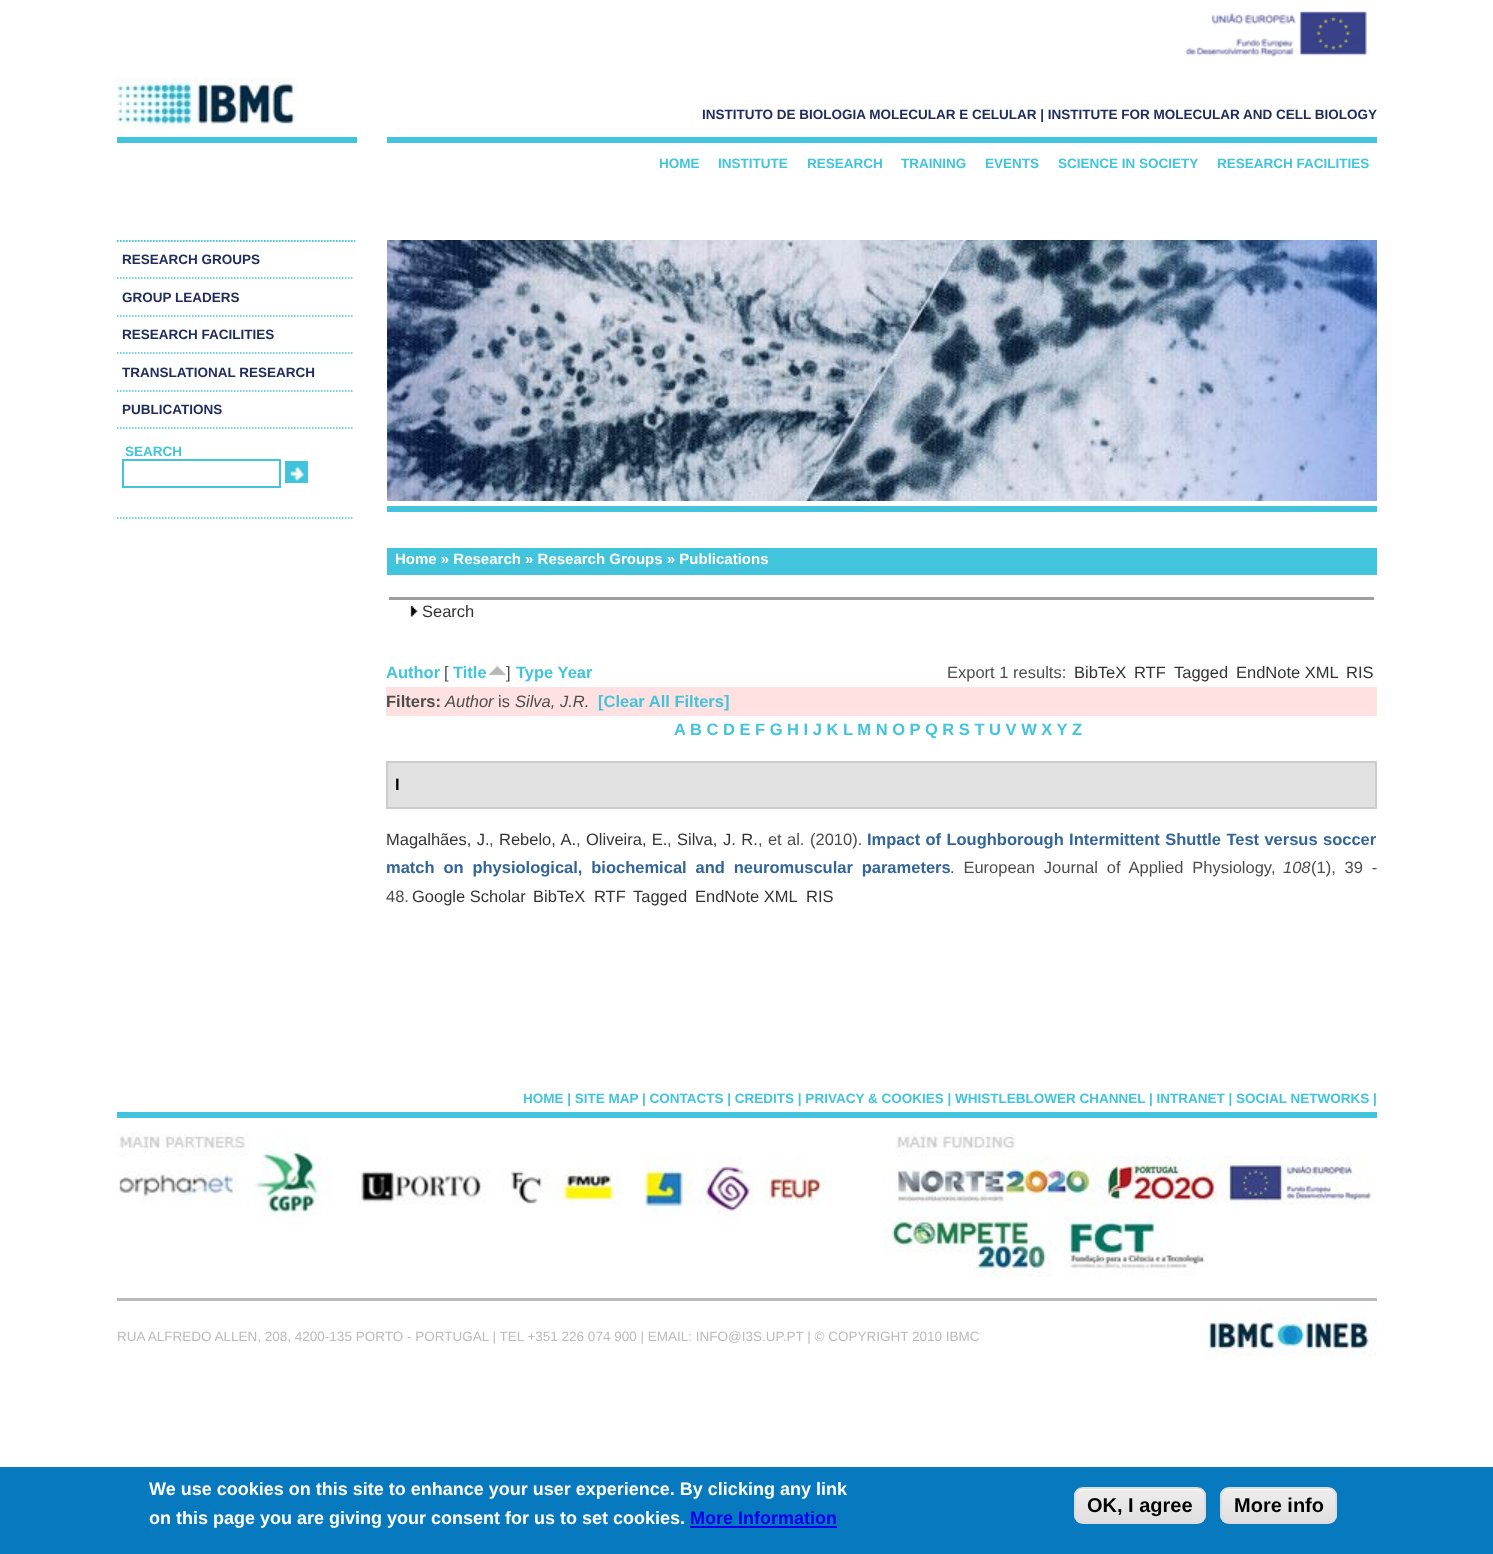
async function draw(canvas) {
  canvas.width = 1493
  canvas.height = 1554
  const ctx = canvas.getContext('2d')
  ctx.miterLimit = 4
  ctx.fontKerning = 'normal'
  async function loadImage(src) {
    const img = new Image()
    img.src = src
    await img.decode()
    return img
  }
  let gradient

  ctx.fillStyle = '#fff'
  ctx.fillRect(0, 0, 1493, 1554)
  ctx.drawImage(await loadImage('image0.png'), 1184, 11, 183, 47)
  ctx.fillStyle = '#41c4dc'
  ctx.fillRect(117, 137, 240, 6)
  ctx.drawImage(await loadImage('image1.png'), 117, 77, 180, 50)
  ctx.fillRect(387, 137, 990, 6)
  ctx.font = 'bold 13.5px Liberation Sans'
  ctx.fillStyle = '#202d5d'
  ctx.fillText('INSTITUTO DE BIOLOGIA MOLECULAR E CELULAR | INSTITUTE FOR MOLECULAR AND CELL BIOLOGY', 702, 119)
  ctx.fillStyle = '#41c4dc'
  ctx.fillText('HOME', 659, 168)
  ctx.fillText('INSTITUTE', 718, 168)
  ctx.fillText('RESEARCH', 807, 168)
  ctx.fillText('TRAINING', 901, 168)
  ctx.fillText('EVENTS', 985, 168)
  ctx.fillText('SCIENCE IN SOCIETY', 1058, 168)
  ctx.fillText('RESEARCH FACILITIES', 1217, 168)
  ctx.beginPath()
  ctx.moveTo(117, 241)
  ctx.lineTo(357, 241)
  ctx.strokeStyle = '#41c4dc'
  ctx.lineWidth = 1.5
  ctx.setLineDash([1.5, 1.5])
  ctx.stroke()
  ctx.beginPath()
  ctx.moveTo(117, 241)
  ctx.lineTo(354, 241)
  ctx.stroke()
  ctx.fillStyle = '#202d5d'
  ctx.fillText('RESEARCH GROUPS', 122, 264)
  ctx.beginPath()
  ctx.moveTo(117, 278)
  ctx.lineTo(354, 278)
  ctx.stroke()
  ctx.fillText('GROUP LEADERS', 122, 302)
  ctx.beginPath()
  ctx.moveTo(117, 316)
  ctx.lineTo(354, 316)
  ctx.stroke()
  ctx.fillText('RESEARCH FACILITIES', 122, 339)
  ctx.beginPath()
  ctx.moveTo(117, 353)
  ctx.lineTo(354, 353)
  ctx.stroke()
  ctx.fillText('TRANSLATIONAL RESEARCH', 122, 377)
  ctx.beginPath()
  ctx.moveTo(117, 391)
  ctx.lineTo(354, 391)
  ctx.stroke()
  ctx.fillText('PUBLICATIONS', 122, 414)
  ctx.beginPath()
  ctx.moveTo(117, 428)
  ctx.lineTo(354, 428)
  ctx.stroke()
  ctx.beginPath()
  ctx.moveTo(117, 518)
  ctx.lineTo(354, 518)
  ctx.stroke()
  ctx.fillStyle = '#41c4dc'
  ctx.fillText('SEARCH', 125, 456)
  ctx.lineWidth = 2
  ctx.setLineDash([])
  ctx.strokeRect(123, 460, 157, 27)
  ctx.drawImage(await loadImage('image2.png'), 287, 463, 19, 18)
  ctx.strokeRect(286, 462, 21, 20)
  ctx.fillRect(387, 506, 990, 6)
  ctx.drawImage(await loadImage('image3.png'), 387, 240, 990, 261)
  ctx.fillRect(387, 548, 990, 27)
  ctx.font = 'bold 15px Liberation Sans'
  ctx.fillStyle = '#fff'
  ctx.fillText('Home » Research » Research Groups » Publications', 395, 564)
  ctx.fillStyle = '#9f9f9f'
  ctx.fillRect(389, 597, 985, 3)
  ctx.drawImage(await loadImage('image4.png'), 410, 606, 8, 11)
  ctx.font = '16.5px Liberation Sans'
  ctx.fillStyle = '#333'
  ctx.fillText('Search', 422, 617)
  ctx.font = 'bold 16.5px Liberation Sans'
  ctx.fillStyle = '#41c4dc'
  ctx.fillText('Author', 386, 678)
  ctx.font = '16.5px Liberation Sans'
  ctx.fillStyle = '#4d4d4d'
  ctx.fillText('[', 444, 678)
  ctx.font = 'bold 16.5px Liberation Sans'
  ctx.fillStyle = '#41c4dc'
  ctx.fillText('Title', 453, 678)
  ctx.drawImage(await loadImage('image5.png'), 488, 665, 18, 11)
  ctx.font = '16.5px Liberation Sans'
  ctx.fillStyle = '#4d4d4d'
  ctx.fillText(']', 506, 678)
  ctx.font = 'bold 16.5px Liberation Sans'
  ctx.fillStyle = '#41c4dc'
  ctx.fillText('Type Year', 516, 678)
  ctx.font = '16.5px Liberation Sans'
  ctx.fillStyle = '#4d4d4d'
  ctx.fillText('Export 1 results:', 947, 678)
  ctx.fillStyle = '#333'
  ctx.fillText('BibTeX', 1074, 678)
  ctx.fillText('RTF', 1134, 678)
  ctx.fillText('Tagged', 1174, 678)
  ctx.fillText('EndNote XML', 1236, 678)
  ctx.fillText('RIS', 1346, 678)
  ctx.fillStyle = '#ffe1e1'
  ctx.fillRect(386, 687, 991, 29)
  ctx.font = 'bold 16.5px Liberation Sans'
  ctx.fillStyle = '#4d4d4d'
  ctx.fillText('Filters:', 386, 707)
  ctx.font = 'italic 16.5px Liberation Sans'
  ctx.fillText('Author', 445, 707)
  ctx.font = '16.5px Liberation Sans'
  ctx.fillText('is', 498, 707)
  ctx.font = 'italic 16.5px Liberation Sans'
  ctx.fillText('Silva, J.R.', 515, 707)
  ctx.font = 'bold 16.5px Liberation Sans'
  ctx.fillStyle = '#41c4dc'
  ctx.fillText('[Clear All Filters]', 598, 707)
  ctx.fillText('A B C D E F G H I J K L M N O P Q R S T U V W X Y Z', 674, 735)
  ctx.fillStyle = '#e1e1e1'
  ctx.beginPath()
  ctx.rect(387, 762, 989, 46)
  ctx.fill()
  ctx.strokeStyle = '#ccc'
  ctx.stroke()
  ctx.fillStyle = '#000'
  ctx.fillText('I', 395, 790)
  ctx.wordSpacing = '0.75px'
  ctx.font = '16.5px Liberation Sans'
  ctx.fillStyle = '#333'
  ctx.fillText('Magalhães, J.', 386, 845)
  ctx.wordSpacing = '0px'
  ctx.fillStyle = '#4d4d4d'
  ctx.fillText(',', 489, 845)
  ctx.wordSpacing = '1px'
  ctx.fillStyle = '#333'
  ctx.fillText('Rebelo, A.', 499, 845)
  ctx.wordSpacing = '0px'
  ctx.fillStyle = '#4d4d4d'
  ctx.fillText(',', 576, 845)
  ctx.wordSpacing = '0.75px'
  ctx.fillStyle = '#333'
  ctx.fillText('Oliveira, E.', 586, 845)
  ctx.wordSpacing = '0px'
  ctx.fillStyle = '#4d4d4d'
  ctx.fillText(',', 667, 845)
  ctx.wordSpacing = '1px'
  ctx.fillStyle = '#333'
  ctx.fillText('Silva, J. R.', 677, 845)
  ctx.wordSpacing = '0.75px'
  ctx.fillStyle = '#4d4d4d'
  ctx.fillText(', et al.', 758, 845)
  ctx.wordSpacing = '0px'
  ctx.fillText('(2010).', 810, 845)
  ctx.wordSpacing = '0.75px'
  ctx.font = 'bold 16.5px Liberation Sans'
  ctx.fillStyle = '#336599'
  ctx.fillText('Impact of Loughborough Intermittent Shuttle Test versus soccer', 867, 845)
  ctx.wordSpacing = '4.25px'
  ctx.fillText('match on physiological, biochemical and neuromuscular parameters', 386, 873)
  ctx.font = '16.5px Liberation Sans'
  ctx.fillStyle = '#4d4d4d'
  ctx.fillText('. European Journal of Applied Physiology,', 950, 873)
  ctx.wordSpacing = '0px'
  ctx.font = 'italic 16.5px Liberation Sans'
  ctx.fillText('108', 1283, 873)
  ctx.wordSpacing = '4.25px'
  ctx.font = '16.5px Liberation Sans'
  ctx.fillText('(1), 39 -', 1311, 873)
  ctx.wordSpacing = '0px'
  ctx.fillText('48.', 386, 902)
  ctx.fillStyle = '#333'
  ctx.fillText('Google Scholar', 412, 902)
  ctx.fillText('BibTeX', 533, 902)
  ctx.fillText('RTF', 594, 902)
  ctx.fillText('Tagged', 633, 902)
  ctx.fillText('EndNote XML', 695, 902)
  ctx.fillText('RIS', 806, 902)
  ctx.font = 'bold 13.5px Liberation Sans'
  ctx.fillStyle = '#41c4dc'
  ctx.fillText('HOME | SITE MAP | CONTACTS | CREDITS | PRIVACY & COOKIES | WHISTLEBLOWER CHANNEL | INTRANET | SOCIAL NETWORKS |', 523, 1103)
  ctx.fillRect(117, 1112, 1260, 6)
  ctx.drawImage(await loadImage('image6.png'), 117, 1132, 715, 94)
  ctx.drawImage(await loadImage('image7.png'), 883, 1132, 493, 145)
  ctx.fillStyle = '#bbb'
  ctx.fillRect(117, 1298, 1260, 3)
  ctx.font = '13.5px Liberation Sans'
  ctx.fillText('RUA ALFREDO ALLEN, 208, 4200-135 PORTO - PORTUGAL | TEL +351 226 074 900 | EMAIL: INFO@I3S.UP.PT | © COPYRIGHT 2010 IBMC', 117, 1341)
  ctx.drawImage(await loadImage('image8.png'), 1204, 1308, 173, 49)
  ctx.fillStyle = '#0779bf'
  ctx.fillRect(0, 1467, 1493, 87)
  ctx.font = 'bold 18px Liberation Sans'
  ctx.fillStyle = '#fff'
  ctx.fillText('We use cookies on this site to enhance your user experience. By clicking any link', 149, 1495)
  ctx.fillText('on this page you are giving your consent for us to set cookies.', 149, 1524)
  ctx.fillStyle = '#00e'
  ctx.fillText('More Information', 690, 1524)
  ctx.fillRect(690, 1526, 147, 2)
  ctx.save()
  ctx.beginPath()
  ctx.roundRect(1074, 1487, 132, 37, 9)
  ctx.clip()
  gradient = ctx.createLinearGradient(1140, 1488, 1140, 1523)
  gradient.addColorStop(0.05, '#ededed')
  gradient.addColorStop(1, '#dfdfdf')
  ctx.fillStyle = gradient
  ctx.fillRect(1074, 1488, 132, 35)
  ctx.restore()
  ctx.fillStyle = '#fff'
  ctx.beginPath()
  ctx.moveTo(1083, 1490)
  ctx.lineTo(1197, 1490)
  ctx.bezierCurveTo(1201, 1490, 1204, 1493, 1204, 1497)
  ctx.lineTo(1204, 1516)
  ctx.lineTo(1203, 1520)
  ctx.bezierCurveTo(1204, 1519, 1205, 1517, 1205, 1515)
  ctx.lineTo(1205, 1496)
  ctx.bezierCurveTo(1205, 1492, 1201, 1488, 1197, 1488)
  ctx.lineTo(1084, 1488)
  ctx.bezierCurveTo(1080, 1488, 1076, 1492, 1076, 1496)
  ctx.lineTo(1076, 1497)
  ctx.bezierCurveTo(1076, 1493, 1079, 1490, 1083, 1490)
  ctx.closePath()
  ctx.fill()
  ctx.beginPath()
  ctx.roundRect(1075, 1488, 130, 35, 8)
  ctx.strokeStyle = '#dcdcdc'
  ctx.stroke()
  ctx.font = 'bold 20px Liberation Sans'
  ctx.fillStyle = '#000'
  ctx.fillText('OK, I agree', 1087, 1512)
  ctx.save()
  ctx.beginPath()
  ctx.roundRect(1220, 1487, 117, 37, 9)
  ctx.clip()
  gradient = ctx.createLinearGradient(1278, 1488, 1278, 1523)
  gradient.addColorStop(0.05, '#ededed')
  gradient.addColorStop(1, '#dfdfdf')
  ctx.fillStyle = gradient
  ctx.fillRect(1220, 1488, 117, 35)
  ctx.restore()
  ctx.fillStyle = '#fff'
  ctx.beginPath()
  ctx.moveTo(1228, 1490)
  ctx.lineTo(1328, 1490)
  ctx.bezierCurveTo(1332, 1490, 1335, 1493, 1335, 1497)
  ctx.bezierCurveTo(1335, 1484, 1319, 1488, 1311, 1488)
  ctx.lineTo(1245, 1488)
  ctx.bezierCurveTo(1237, 1488, 1221, 1484, 1221, 1497)
  ctx.bezierCurveTo(1221, 1493, 1224, 1490, 1228, 1490)
  ctx.closePath()
  ctx.fill()
  ctx.beginPath()
  ctx.roundRect(1221, 1488, 115, 35, 8)
  ctx.stroke()
  ctx.fillStyle = '#000'
  ctx.fillText('More info', 1234, 1512)
}

draw(document.querySelector('canvas'))
